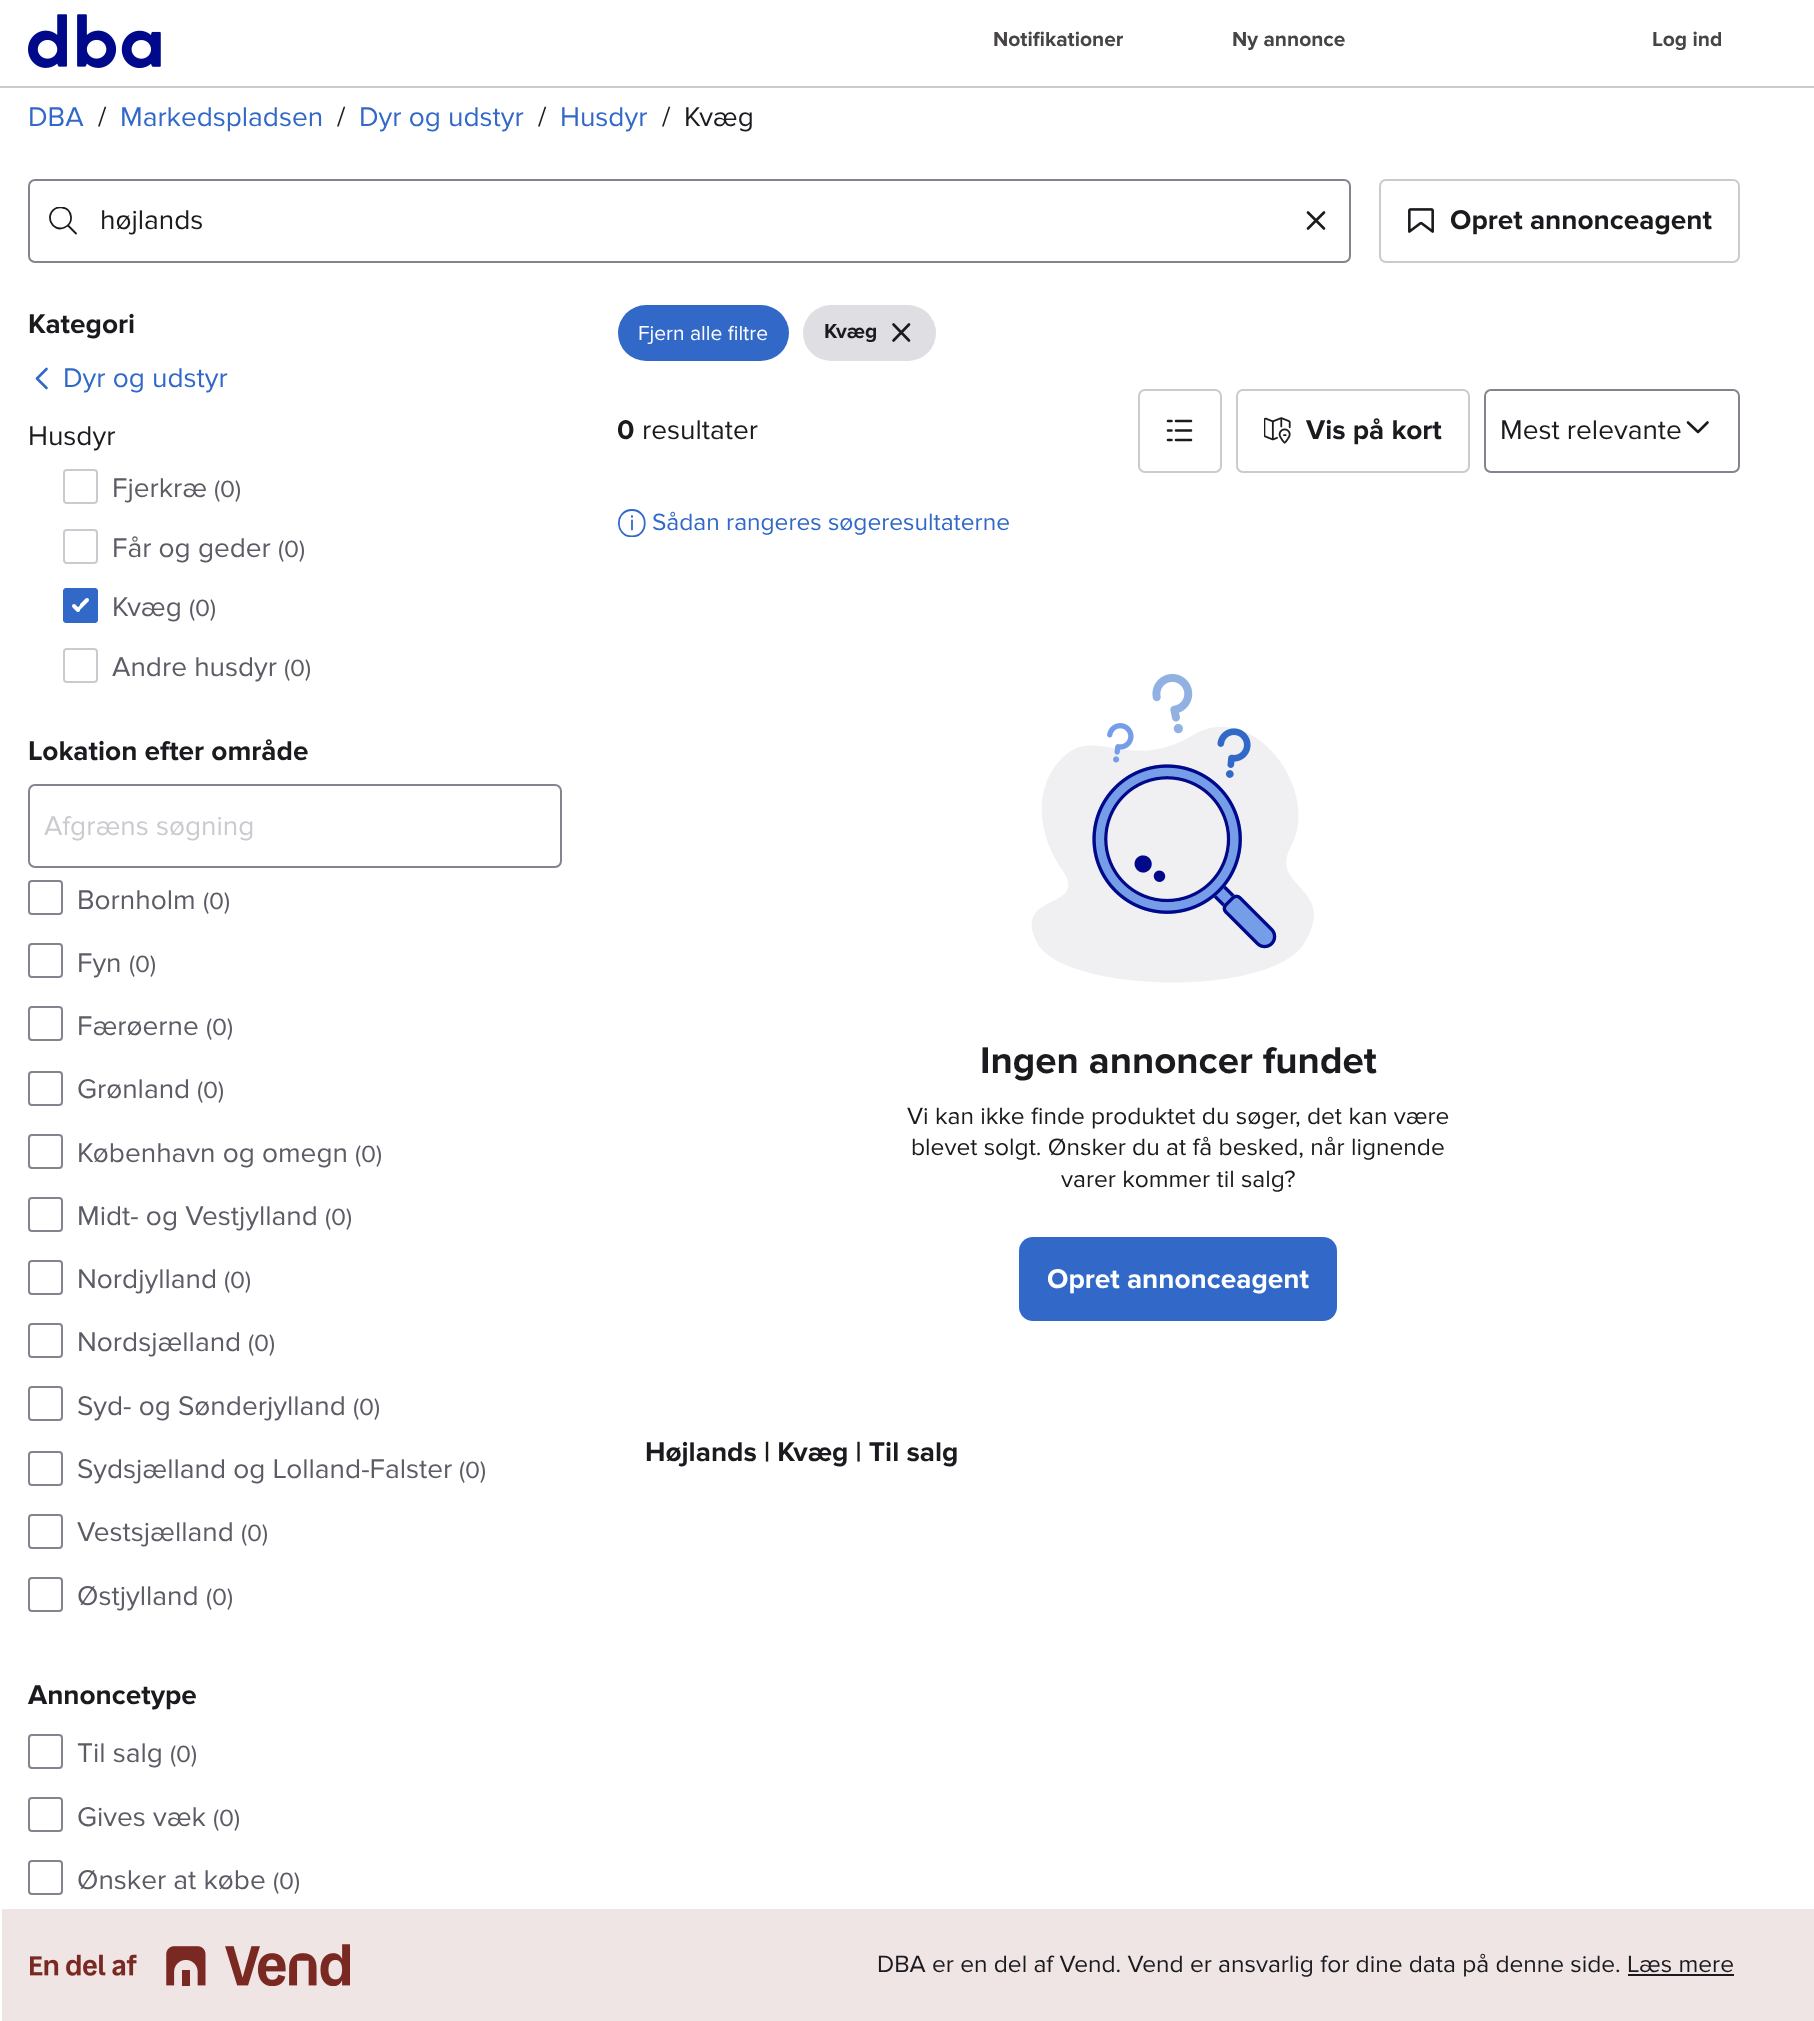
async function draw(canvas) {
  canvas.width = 1814
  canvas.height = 2021
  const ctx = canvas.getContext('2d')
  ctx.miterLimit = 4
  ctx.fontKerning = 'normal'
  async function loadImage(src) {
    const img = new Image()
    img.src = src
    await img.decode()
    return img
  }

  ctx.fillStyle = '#fff'
  ctx.fillRect(0, 0, 1814, 2021)
  ctx.fillStyle = '#cacad1'
  ctx.fillRect(0, 86, 1814, 2)
  ctx.drawImage(await loadImage('image0.png'), 28, 14, 133, 54)
  ctx.font = 'bold 21px Proxima Nova'
  ctx.fillStyle = '#474445'
  ctx.fillText('Notifikationer', 993, 46)
  ctx.fillText('Ny annonce', 1232, 46)
  ctx.fillText('Log ind', 1652, 46)
  ctx.font = '28px Proxima Nova'
  ctx.fillStyle = '#3269c8'
  ctx.fillText('DBA', 28, 126)
  ctx.fillStyle = '#1b1b1f'
  ctx.fillText('/', 98, 126)
  ctx.fillStyle = '#3269c8'
  ctx.fillText('Markedspladsen', 120, 126)
  ctx.fillStyle = '#1b1b1f'
  ctx.fillText('/', 337, 126)
  ctx.fillStyle = '#3269c8'
  ctx.fillText('Dyr og udstyr', 359, 126)
  ctx.fillStyle = '#1b1b1f'
  ctx.fillText('/', 538, 126)
  ctx.fillStyle = '#3269c8'
  ctx.fillText('Husdyr', 560, 126)
  ctx.fillStyle = '#1b1b1f'
  ctx.fillText('/', 662, 126)
  ctx.fillText('Kvæg', 684, 126)
  ctx.beginPath()
  ctx.roundRect(29, 180, 1321, 82, 6)
  ctx.strokeStyle = '#84848f'
  ctx.lineWidth = 2
  ctx.stroke()
  ctx.save()
  ctx.beginPath()
  ctx.rect(49, 207, 28, 28)
  ctx.clip()
  ctx.beginPath()
  ctx.moveTo(64.5, 227.5)
  ctx.bezierCurveTo(74.5, 223.5, 72.5, 208.5, 62, 207.5)
  ctx.bezierCurveTo(60, 207, 58, 207.5, 56.5, 208)
  ctx.bezierCurveTo(43.5, 214, 52, 233, 64.5, 227.5)
  ctx.closePath()
  ctx.moveTo(68, 225.5)
  ctx.lineTo(76, 233.5)
  ctx.strokeStyle = '#1b1b1f'
  ctx.lineWidth = 1.8
  ctx.lineCap = 'round'
  ctx.lineJoin = 'round'
  ctx.stroke()
  ctx.restore()
  ctx.fillText('højlands', 100, 229)
  ctx.beginPath()
  ctx.moveTo(1324, 212.5)
  ctx.lineTo(1308, 228.5)
  ctx.moveTo(1308, 212.5)
  ctx.lineTo(1324, 228.5)
  ctx.strokeStyle = '#1b1b1f'
  ctx.lineWidth = 2.6
  ctx.lineCap = 'round'
  ctx.lineJoin = 'round'
  ctx.stroke()
  ctx.beginPath()
  ctx.roundRect(1380, 180, 359, 82, 6)
  ctx.strokeStyle = '#cacad1'
  ctx.lineWidth = 2
  ctx.lineJoin = 'miter'
  ctx.stroke()
  ctx.drawImage(await loadImage('image1.png'), 1408, 208, 26, 25)
  ctx.font = 'bold 28px Proxima Nova'
  ctx.fillText('Opret annonceagent', 1450, 229)
  ctx.fillText('Kategori', 28, 333)
  ctx.beginPath()
  ctx.moveTo(46.5, 388)
  ctx.lineTo(37, 378.5)
  ctx.lineTo(46.5, 369)
  ctx.strokeStyle = '#3269c8'
  ctx.lineWidth = 2.6
  ctx.lineJoin = 'round'
  ctx.stroke()
  ctx.font = '28px Proxima Nova'
  ctx.fillStyle = '#3269c8'
  ctx.fillText('Dyr og udstyr', 63, 387)
  ctx.fillStyle = '#1b1b1f'
  ctx.fillText('Husdyr', 28, 445)
  ctx.beginPath()
  ctx.roundRect(64, 470, 33, 33, 3)
  ctx.strokeStyle = '#cacad1'
  ctx.lineWidth = 2
  ctx.lineJoin = 'miter'
  ctx.stroke()
  ctx.fillStyle = '#5c5c66'
  ctx.fillText('Fjerkræ', 112, 497)
  ctx.font = '24.5px Proxima Nova'
  ctx.fillText('(0)', 214, 497)
  ctx.beginPath()
  ctx.roundRect(64, 530, 33, 33, 3)
  ctx.stroke()
  ctx.font = '28px Proxima Nova'
  ctx.fillText('Får og geder', 112, 557)
  ctx.font = '24.5px Proxima Nova'
  ctx.fillText('(0)', 278, 557)
  ctx.fillStyle = '#3269c8'
  ctx.beginPath()
  ctx.roundRect(63, 588, 35, 35, 4)
  ctx.fill()
  ctx.drawImage(await loadImage('image2.png'), 72, 598, 17, 14)
  ctx.beginPath()
  ctx.roundRect(64, 589, 33, 33, 3)
  ctx.strokeStyle = '#3269c8'
  ctx.stroke()
  ctx.font = '28px Proxima Nova'
  ctx.fillStyle = '#5c5c66'
  ctx.fillText('Kvæg', 112, 616)
  ctx.font = '24.5px Proxima Nova'
  ctx.fillText('(0)', 189, 616)
  ctx.beginPath()
  ctx.roundRect(64, 649, 33, 33, 3)
  ctx.strokeStyle = '#cacad1'
  ctx.stroke()
  ctx.font = '28px Proxima Nova'
  ctx.fillText('Andre husdyr', 112, 676)
  ctx.font = '24.5px Proxima Nova'
  ctx.fillText('(0)', 284, 676)
  ctx.font = 'bold 28px Proxima Nova'
  ctx.fillStyle = '#1b1b1f'
  ctx.fillText('Lokation efter område', 28, 760)
  ctx.beginPath()
  ctx.roundRect(29, 785, 532, 82, 6)
  ctx.strokeStyle = '#84848f'
  ctx.stroke()
  ctx.font = '28px Proxima Nova'
  ctx.fillStyle = '#cacad1'
  ctx.fillText('Afgræns søgning', 44, 835)
  ctx.beginPath()
  ctx.roundRect(29, 881, 33, 33, 3)
  ctx.stroke()
  ctx.fillStyle = '#5c5c66'
  ctx.fillText('Bornholm', 77, 909)
  ctx.font = '24.5px Proxima Nova'
  ctx.fillText('(0)', 203, 909)
  ctx.beginPath()
  ctx.roundRect(29, 944, 33, 33, 3)
  ctx.stroke()
  ctx.font = '28px Proxima Nova'
  ctx.fillText('Fyn', 77, 972)
  ctx.font = '24.5px Proxima Nova'
  ctx.fillText('(0)', 129, 972)
  ctx.beginPath()
  ctx.roundRect(29, 1007, 33, 33, 3)
  ctx.stroke()
  ctx.font = '28px Proxima Nova'
  ctx.fillText('Færøerne', 77, 1035)
  ctx.font = '24.5px Proxima Nova'
  ctx.fillText('(0)', 206, 1035)
  ctx.beginPath()
  ctx.roundRect(29, 1072, 33, 33, 3)
  ctx.stroke()
  ctx.font = '28px Proxima Nova'
  ctx.fillText('Grønland', 77, 1098)
  ctx.font = '24.5px Proxima Nova'
  ctx.fillText('(0)', 197, 1098)
  ctx.beginPath()
  ctx.roundRect(29, 1135, 33, 33, 3)
  ctx.stroke()
  ctx.font = '28px Proxima Nova'
  ctx.fillText('København og omegn', 77, 1162)
  ctx.font = '24.5px Proxima Nova'
  ctx.fillText('(0)', 355, 1162)
  ctx.beginPath()
  ctx.roundRect(29, 1198, 33, 33, 3)
  ctx.stroke()
  ctx.font = '28px Proxima Nova'
  ctx.fillText('Midt- og Vestjylland', 77, 1225)
  ctx.font = '24.5px Proxima Nova'
  ctx.fillText('(0)', 325, 1225)
  ctx.beginPath()
  ctx.roundRect(29, 1261, 33, 33, 3)
  ctx.stroke()
  ctx.font = '28px Proxima Nova'
  ctx.fillText('Nordjylland', 77, 1288)
  ctx.font = '24.5px Proxima Nova'
  ctx.fillText('(0)', 224, 1288)
  ctx.beginPath()
  ctx.roundRect(29, 1324, 33, 33, 3)
  ctx.stroke()
  ctx.font = '28px Proxima Nova'
  ctx.fillText('Nordsjælland', 77, 1351)
  ctx.font = '24.5px Proxima Nova'
  ctx.fillText('(0)', 248, 1351)
  ctx.beginPath()
  ctx.roundRect(29, 1387, 33, 33, 3)
  ctx.stroke()
  ctx.font = '28px Proxima Nova'
  ctx.fillText('Syd- og Sønderjylland', 77, 1415)
  ctx.font = '24.5px Proxima Nova'
  ctx.fillText('(0)', 353, 1415)
  ctx.beginPath()
  ctx.roundRect(29, 1452, 33, 33, 3)
  ctx.stroke()
  ctx.font = '28px Proxima Nova'
  ctx.fillText('Sydsjælland og Lolland-Falster', 77, 1478)
  ctx.font = '24.5px Proxima Nova'
  ctx.fillText('(0)', 459, 1478)
  ctx.beginPath()
  ctx.roundRect(29, 1515, 33, 33, 3)
  ctx.stroke()
  ctx.font = '28px Proxima Nova'
  ctx.fillText('Vestsjælland', 77, 1541)
  ctx.font = '24.5px Proxima Nova'
  ctx.fillText('(0)', 241, 1541)
  ctx.beginPath()
  ctx.roundRect(29, 1578, 33, 33, 3)
  ctx.stroke()
  ctx.font = '28px Proxima Nova'
  ctx.fillText('Østjylland', 77, 1605)
  ctx.font = '24.5px Proxima Nova'
  ctx.fillText('(0)', 206, 1605)
  ctx.font = 'bold 28px Proxima Nova'
  ctx.fillStyle = '#1b1b1f'
  ctx.fillText('Annoncetype', 28, 1704)
  ctx.beginPath()
  ctx.roundRect(29, 1735, 33, 33, 3)
  ctx.stroke()
  ctx.font = '28px Proxima Nova'
  ctx.fillStyle = '#5c5c66'
  ctx.fillText('Til salg', 77, 1762)
  ctx.font = '24.5px Proxima Nova'
  ctx.fillText('(0)', 170, 1762)
  ctx.beginPath()
  ctx.roundRect(29, 1798, 33, 33, 3)
  ctx.stroke()
  ctx.font = '28px Proxima Nova'
  ctx.fillText('Gives væk', 77, 1826)
  ctx.font = '24.5px Proxima Nova'
  ctx.fillText('(0)', 213, 1826)
  ctx.beginPath()
  ctx.roundRect(29, 1861, 33, 33, 3)
  ctx.stroke()
  ctx.font = '28px Proxima Nova'
  ctx.fillText('Ønsker at købe', 77, 1889)
  ctx.font = '24.5px Proxima Nova'
  ctx.fillText('(0)', 273, 1889)
  ctx.fillStyle = '#3269c8'
  ctx.beginPath()
  ctx.roundRect(618, 305, 171, 56, 28)
  ctx.fill()
  ctx.font = '21px Proxima Nova'
  ctx.fillStyle = '#fff'
  ctx.fillText('Fjern alle filtre', 638, 340)
  ctx.fillStyle = '#dedee3'
  ctx.beginPath()
  ctx.roundRect(803, 305, 77, 56, [28, 0, 0, 28])
  ctx.fill()
  ctx.font = 'bold 21px Proxima Nova'
  ctx.fillStyle = '#1b1b1f'
  ctx.fillText('Kvæg', 824, 338)
  ctx.fillStyle = '#dedee3'
  ctx.beginPath()
  ctx.roundRect(880, 305, 56, 56, [0, 28, 28, 0])
  ctx.fill()
  ctx.beginPath()
  ctx.moveTo(909, 324.5)
  ctx.lineTo(893.5, 340.5)
  ctx.moveTo(893.5, 324.5)
  ctx.lineTo(909, 340.5)
  ctx.strokeStyle = '#1b1b1f'
  ctx.lineWidth = 2.6
  ctx.lineJoin = 'round'
  ctx.stroke()
  ctx.font = 'bold 28px Proxima Nova'
  ctx.fillStyle = '#1b1b1f'
  ctx.fillText('0', 617, 439)
  ctx.font = '28px Proxima Nova'
  ctx.fillText('resultater', 642, 439)
  ctx.beginPath()
  ctx.roundRect(1139, 390, 82, 82, 6)
  ctx.strokeStyle = '#cacad1'
  ctx.lineWidth = 2
  ctx.lineJoin = 'miter'
  ctx.stroke()
  ctx.beginPath()
  ctx.moveTo(1191, 421)
  ctx.lineTo(1176, 421)
  ctx.moveTo(1168, 421)
  ctx.lineTo(1171.5, 421)
  ctx.moveTo(1191, 430.5)
  ctx.lineTo(1176, 430.5)
  ctx.moveTo(1168, 430.5)
  ctx.lineTo(1171.5, 430.5)
  ctx.moveTo(1191, 440)
  ctx.lineTo(1176, 440)
  ctx.moveTo(1168, 440)
  ctx.lineTo(1171.5, 440)
  ctx.strokeStyle = '#1b1b1f'
  ctx.lineWidth = 2.6
  ctx.lineJoin = 'round'
  ctx.stroke()
  ctx.beginPath()
  ctx.roundRect(1237, 390, 232, 82, 6)
  ctx.strokeStyle = '#cacad1'
  ctx.lineWidth = 2
  ctx.lineJoin = 'miter'
  ctx.stroke()
  ctx.drawImage(await loadImage('image3.png'), 1264, 417, 27, 27)
  ctx.font = 'bold 28px Proxima Nova'
  ctx.fillText('Vis på kort', 1306, 439)
  ctx.beginPath()
  ctx.roundRect(1485, 390, 254, 82, 6)
  ctx.strokeStyle = '#84848f'
  ctx.stroke()
  ctx.font = '28px Proxima Nova'
  ctx.fillText('Mest relevante', 1500, 439)
  ctx.beginPath()
  ctx.moveTo(1688, 422.5)
  ctx.lineTo(1698, 432)
  ctx.lineTo(1707.5, 422.5)
  ctx.strokeStyle = '#1b1b1f'
  ctx.lineWidth = 2.6
  ctx.lineJoin = 'round'
  ctx.stroke()
  ctx.beginPath()
  ctx.moveTo(632, 520.5)
  ctx.lineTo(632, 529.5)
  ctx.strokeStyle = '#3269c8'
  ctx.lineWidth = 1.8
  ctx.lineJoin = 'miter'
  ctx.stroke()
  ctx.beginPath()
  ctx.moveTo(632, 516)
  ctx.lineTo(632, 517)
  ctx.lineJoin = 'round'
  ctx.stroke()
  ctx.save()
  ctx.beginPath()
  ctx.rect(618, 509, 28, 28)
  ctx.clip()
  ctx.beginPath()
  ctx.moveTo(632, 510)
  ctx.bezierCurveTo(649, 510, 649, 536.5, 632, 536.5)
  ctx.bezierCurveTo(614.5, 536.5, 614.5, 510, 632, 510)
  ctx.closePath()
  ctx.lineCap = 'butt'
  ctx.lineJoin = 'miter'
  ctx.stroke()
  ctx.restore()
  ctx.font = '24.5px Proxima Nova'
  ctx.fillStyle = '#3269c8'
  ctx.fillText('Sådan rangeres søgeresultaterne', 652, 530)
  ctx.drawImage(await loadImage('image4.png'), 1031, 674, 283, 309)
  ctx.font = 'bold 38.5px Proxima Nova'
  ctx.fillStyle = '#1b1b1f'
  ctx.fillText('Ingen annoncer fundet', 980, 1073)
  ctx.font = '24.5px Proxima Nova'
  ctx.fillText('Vi kan ikke finde produktet du søger, det kan være', 907, 1124)
  ctx.fillText('blevet solgt. Ønsker du at få besked, når lignende', 911, 1155)
  ctx.fillText('varer kommer til salg?', 1061, 1187)
  ctx.fillStyle = '#3269c8'
  ctx.beginPath()
  ctx.roundRect(1019, 1237, 318, 84, 14)
  ctx.fill()
  ctx.font = 'bold 28px Proxima Nova'
  ctx.fillStyle = '#fff'
  ctx.fillText('Opret annonceagent', 1047, 1288)
  ctx.fillStyle = '#1b1b1f'
  ctx.fillText('Højlands | Kvæg | Til salg', 645, 1461)
  ctx.fillStyle = '#efe5e5'
  ctx.fillRect(2, 1909, 1812, 112)
  ctx.drawImage(await loadImage('image5.png'), 30, 1944, 320, 42)
  ctx.font = '24.5px Proxima Nova'
  ctx.fillStyle = '#1b1b1f'
  ctx.fillText('DBA er en del af Vend. Vend er ansvarlig for dine data på denne side. Læs mere', 877, 1972)
  ctx.fillRect(1628, 1974, 106, 2)
}

draw(document.querySelector('canvas'))
